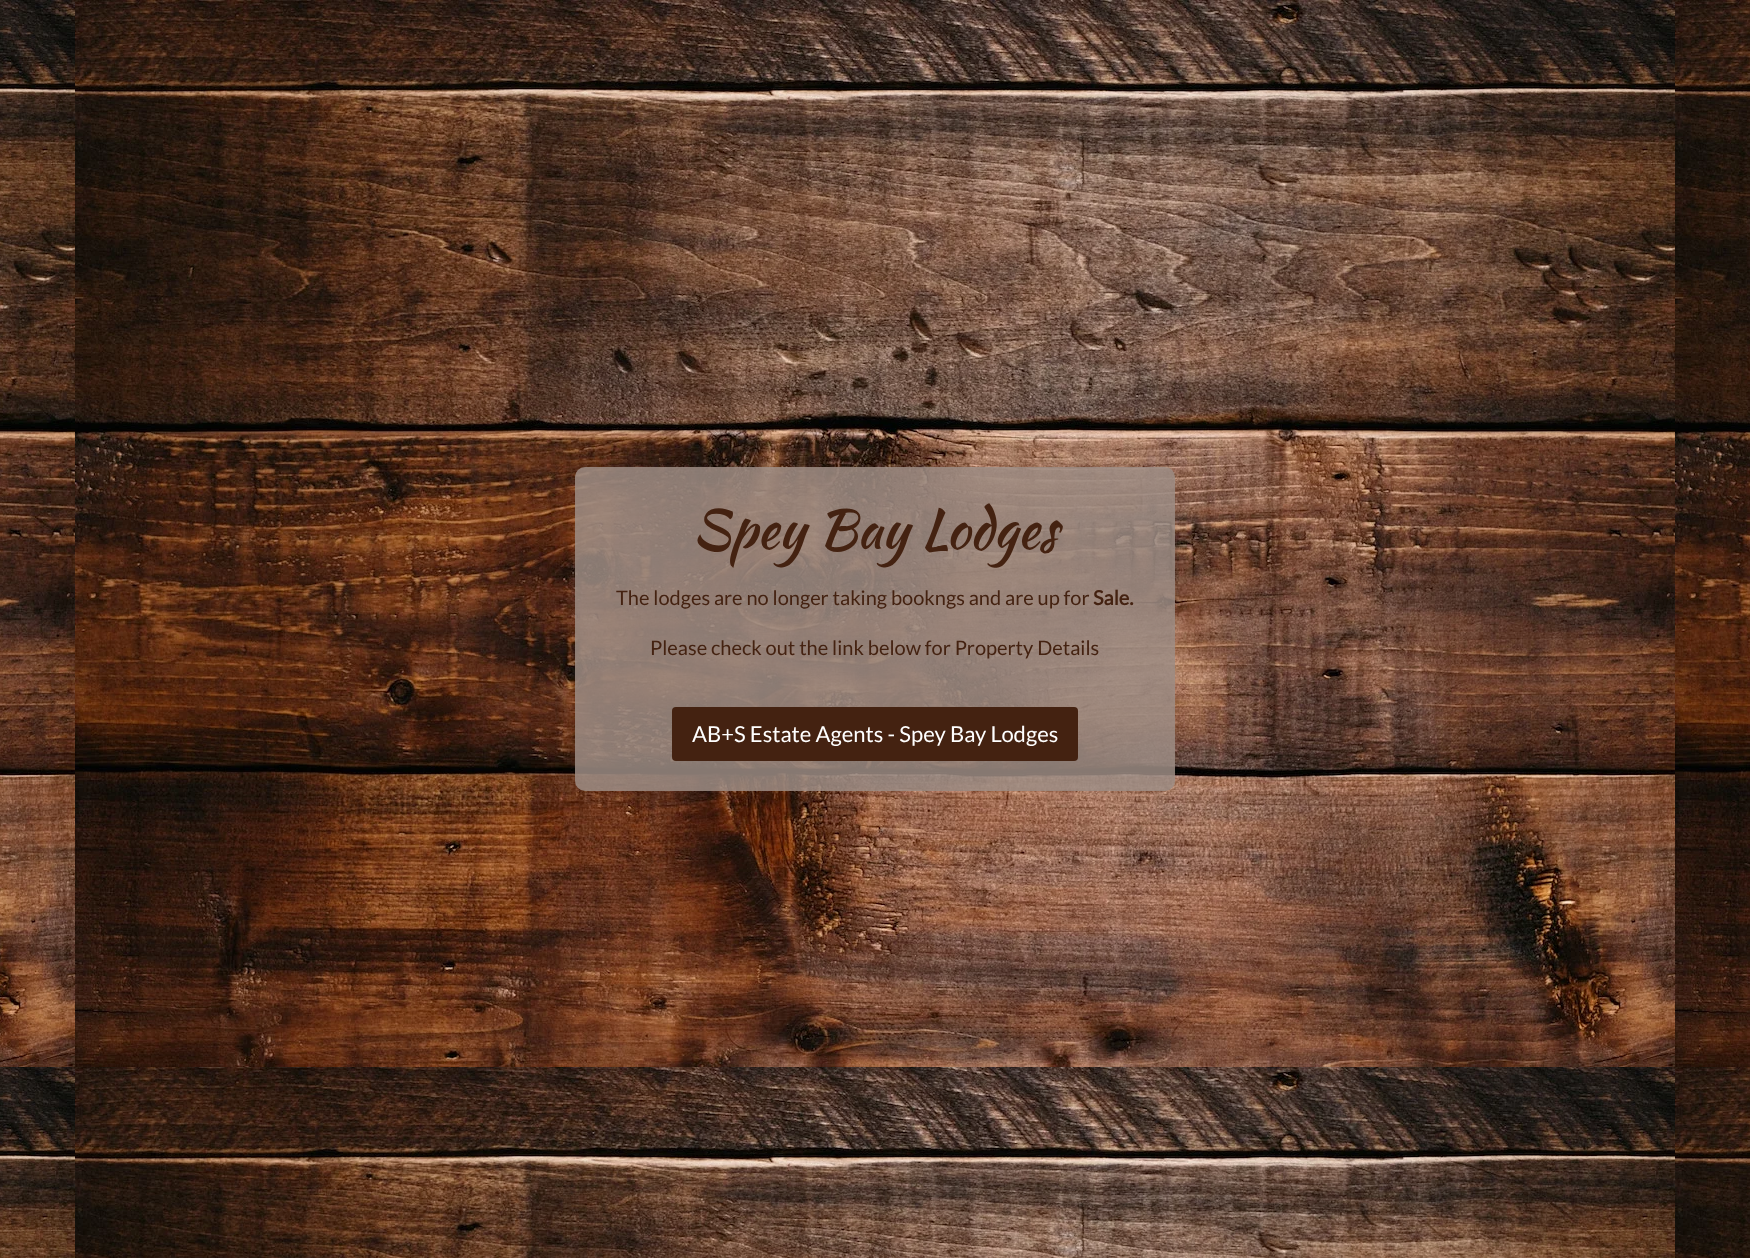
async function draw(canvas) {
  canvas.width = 1750
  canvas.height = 1258
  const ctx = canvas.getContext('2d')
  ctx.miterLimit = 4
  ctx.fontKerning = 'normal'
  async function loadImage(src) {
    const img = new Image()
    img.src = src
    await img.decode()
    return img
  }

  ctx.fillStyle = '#fff'
  ctx.fillRect(0, 0, 1750, 1258)
  ctx.drawImage(await loadImage('image0.png'), 0, 0, 1750, 1258)
  ctx.fillStyle = '#9e8d85d9'
  ctx.beginPath()
  ctx.roundRect(575, 467, 600, 324, 10)
  ctx.fill()
  ctx.font = '54px Kaushan Script'
  ctx.fillStyle = '#421'
  ctx.fillText('Spey Bay Lodges', 692, 548)
  ctx.font = '20px Lato'
  ctx.fillText('The lodges are no longer taking bookngs and are up for', 616, 605)
  ctx.font = 'bold 20px Lato'
  ctx.fillText('Sale.', 1093, 605)
  ctx.font = '20px Lato'
  ctx.fillText('Please check out the link below for Property Details', 650, 655)
  ctx.beginPath()
  ctx.roundRect(672, 707, 406, 54, 4)
  ctx.fill()
  ctx.font = '22px Lato'
  ctx.fillStyle = '#fff'
  ctx.fillText('AB+S Estate Agents - Spey Bay Lodges', 692, 742)
}

draw(document.querySelector('canvas'))
